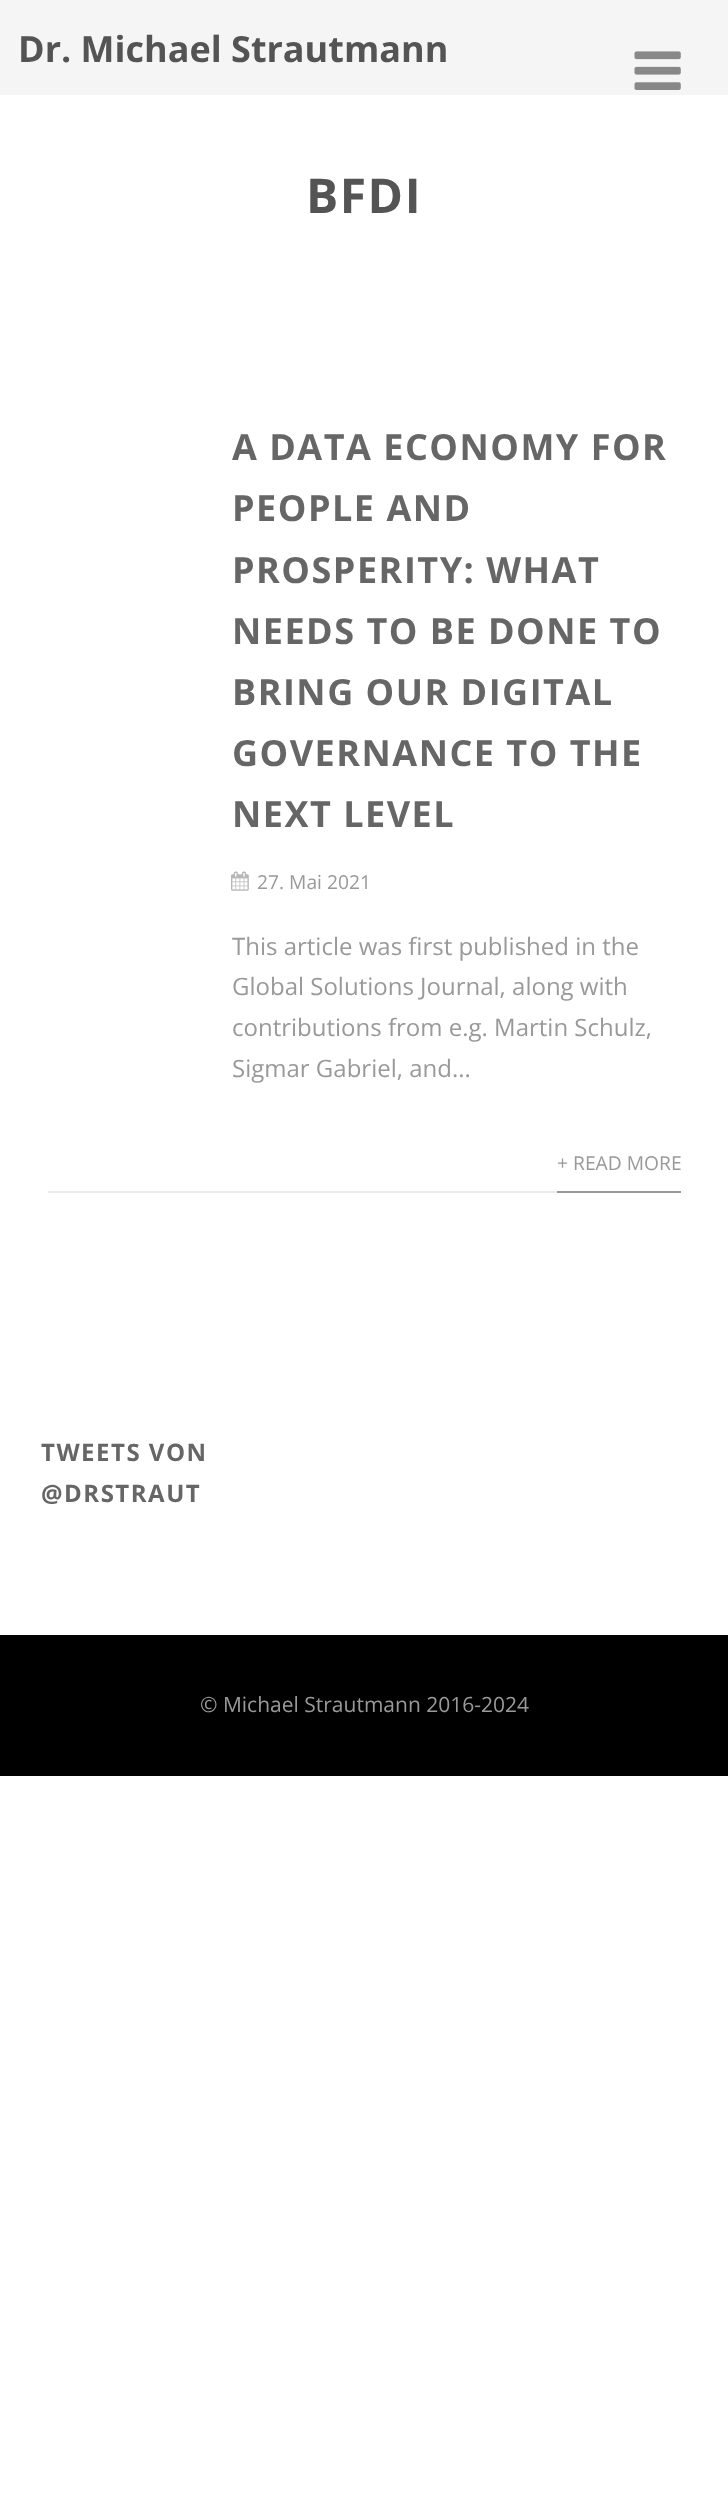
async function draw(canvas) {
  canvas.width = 728
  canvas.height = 2505
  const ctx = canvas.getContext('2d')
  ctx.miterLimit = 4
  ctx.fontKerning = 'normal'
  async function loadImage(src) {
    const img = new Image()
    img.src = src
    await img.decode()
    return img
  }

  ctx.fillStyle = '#fff'
  ctx.fillRect(0, 0, 728, 2505)
  ctx.fillStyle = '#f5f5f5'
  ctx.fillRect(0, 0, 728, 95)
  ctx.font = 'bold 36px Open Sans'
  ctx.fillStyle = '#545454'
  ctx.fillText('Dr. Michael Strautmann', 18, 62)
  ctx.drawImage(await loadImage('image0.png'), 634, 51, 47, 39)
  ctx.letterSpacing = '1.5px'
  ctx.font = 'bold 48px Open Sans'
  ctx.fillText('BFDI', 306, 213)
  ctx.font = 'bold 36px Open Sans'
  ctx.fillStyle = '#666'
  ctx.fillText('A DATA ECONOMY FOR', 232, 460)
  ctx.fillText('PEOPLE AND', 232, 521)
  ctx.fillText('PROSPERITY: WHAT', 232, 583)
  ctx.fillText('NEEDS TO BE DONE TO', 232, 644)
  ctx.fillText('BRING OUR DIGITAL', 232, 705)
  ctx.fillText('GOVERNANCE TO THE', 232, 766)
  ctx.fillText('NEXT LEVEL', 232, 827)
  ctx.drawImage(await loadImage('image1.png'), 231, 871, 18, 20)
  ctx.letterSpacing = '0px'
  ctx.font = '19.25px Open Sans'
  ctx.fillStyle = '#999'
  ctx.fillText('27. Mai 2021', 257, 889)
  ctx.font = '24px Open Sans'
  ctx.fillText('This article was first published in the', 232, 955)
  ctx.fillText('Global Solutions Journal, along with', 232, 995)
  ctx.fillText('contributions from e.g. Martin Schulz,', 232, 1036)
  ctx.fillText('Sigmar Gabriel, and...', 232, 1077)
  ctx.fillStyle = '#ebebeb'
  ctx.fillRect(48, 1191, 509, 2)
  ctx.font = '19.25px Open Sans'
  ctx.fillStyle = '#999'
  ctx.fillText('+ READ MORE', 557, 1170)
  ctx.fillRect(557, 1191, 124, 2)
  ctx.letterSpacing = '1.5px'
  ctx.font = 'bold 24px Open Sans'
  ctx.fillStyle = '#666'
  ctx.fillText('TWEETS VON', 41, 1461)
  ctx.fillText('@DRSTRAUT', 41, 1502)
  ctx.fillStyle = '#000'
  ctx.fillRect(0, 1635, 728, 141)
  ctx.letterSpacing = '0px'
  ctx.font = '21px Open Sans'
  ctx.fillStyle = '#999'
  ctx.fillText('© Michael Strautmann 2016-2024', 200, 1712)
}

draw(document.querySelector('canvas'))
